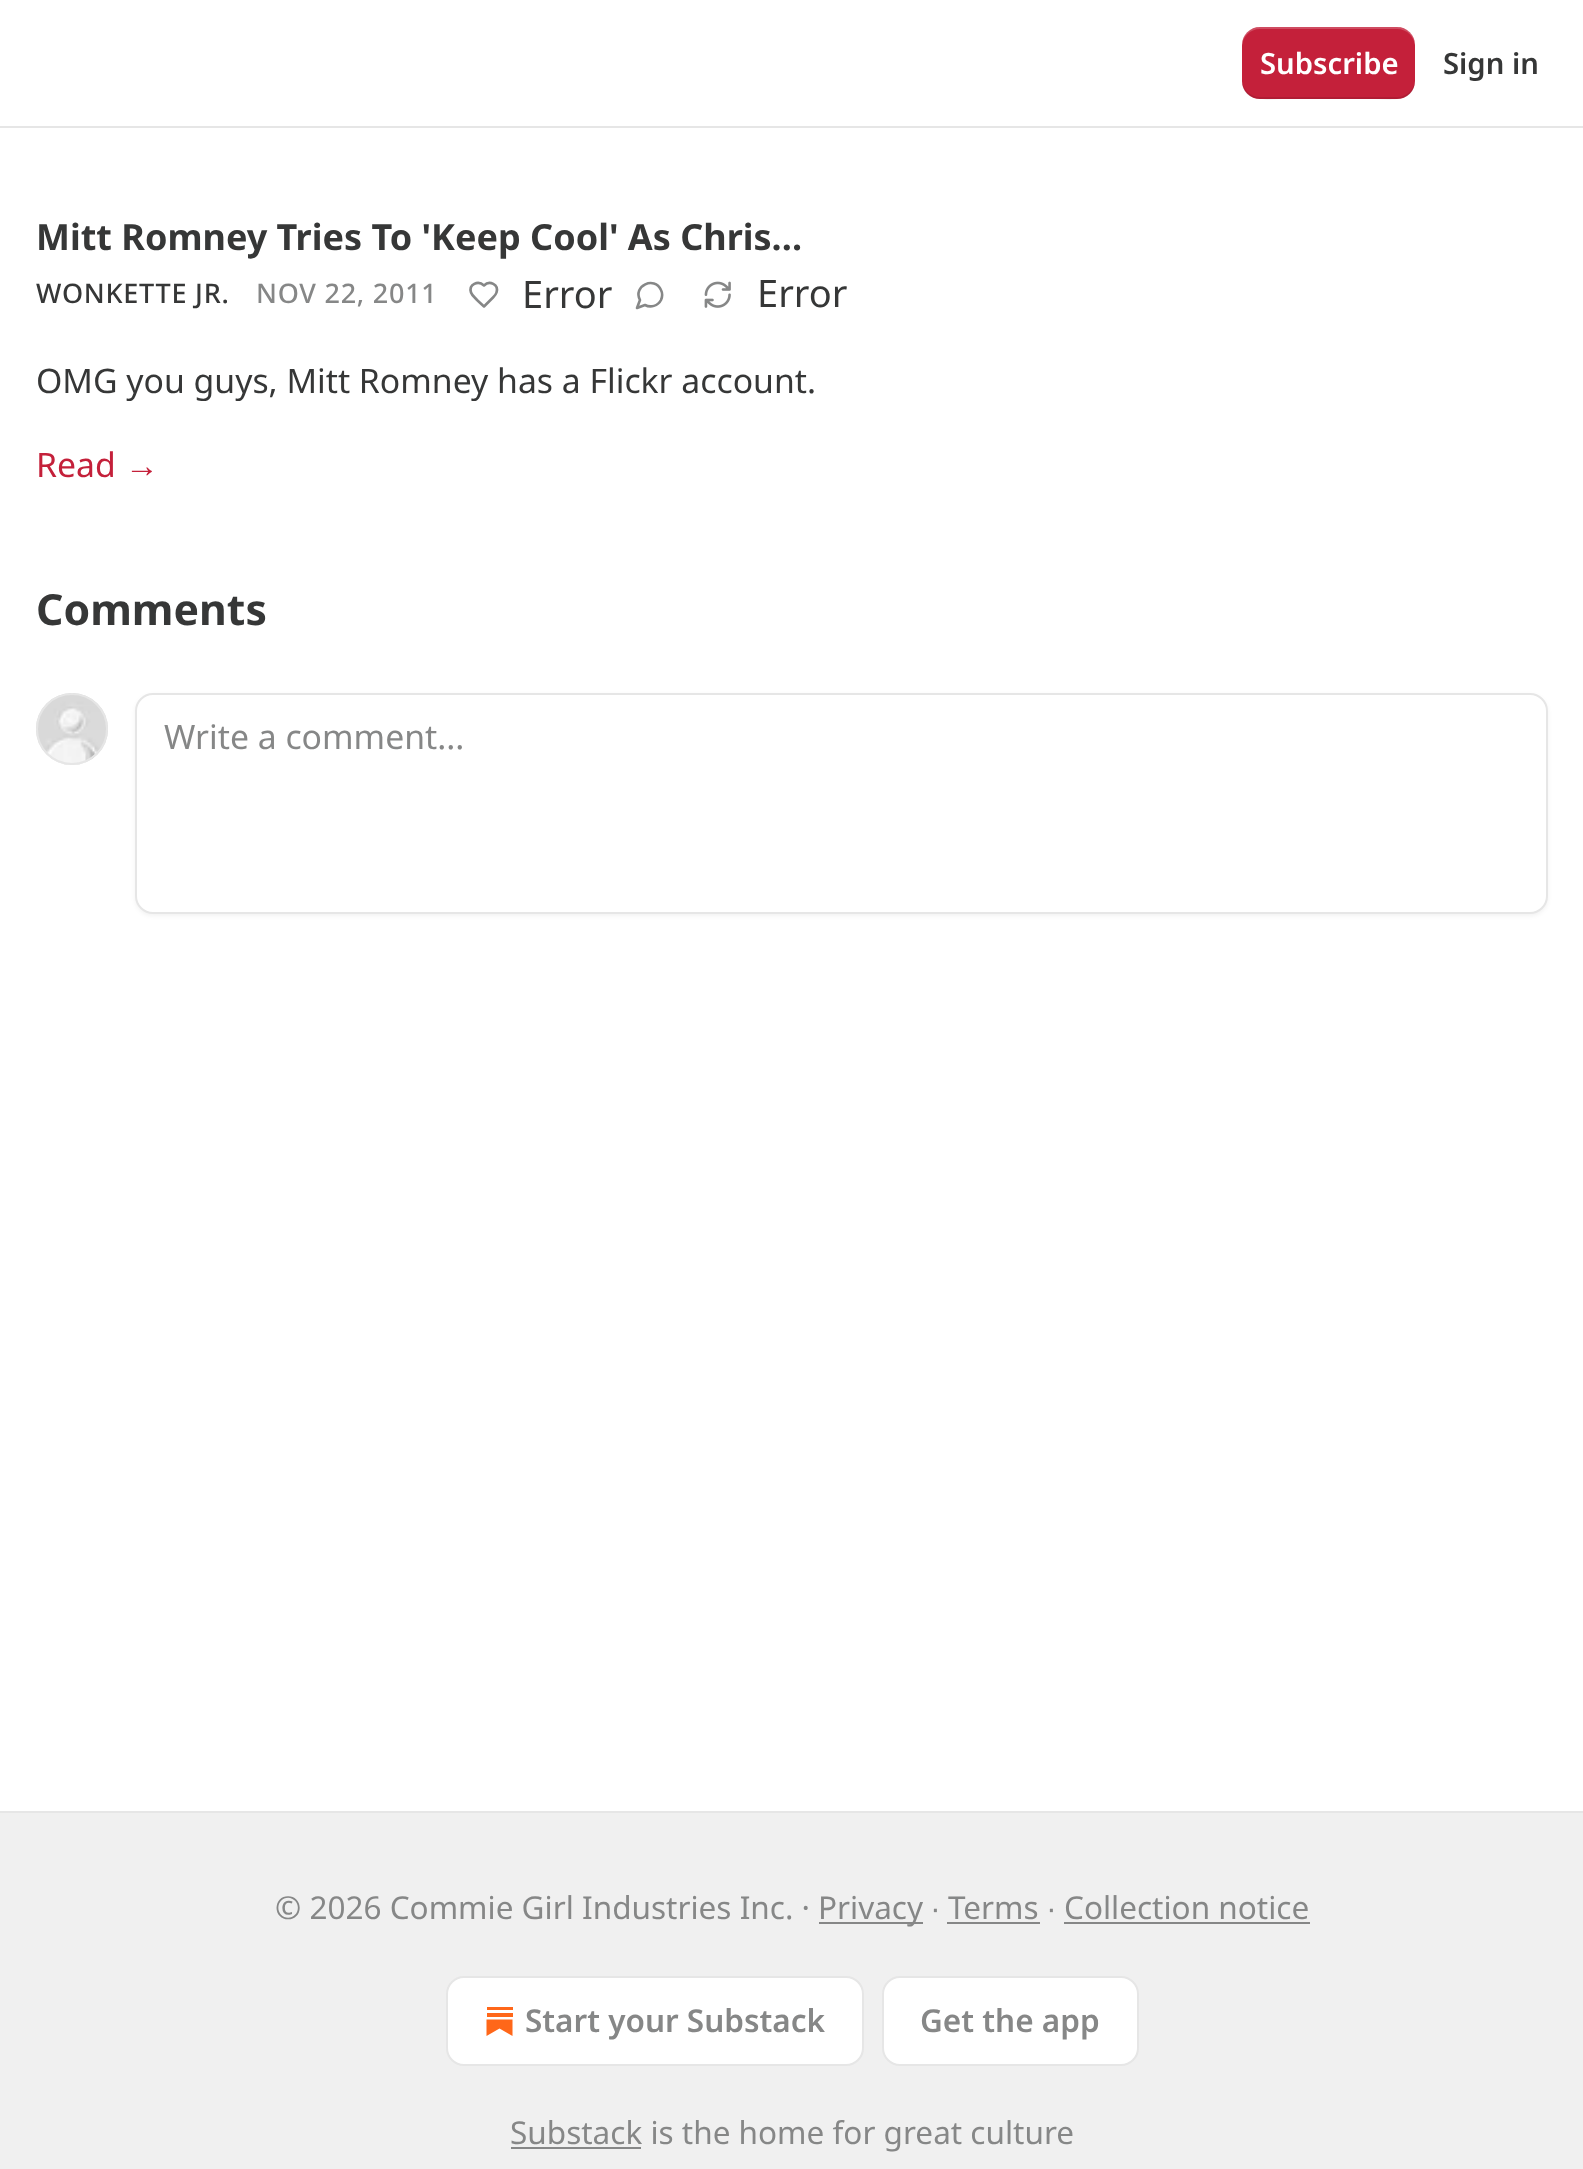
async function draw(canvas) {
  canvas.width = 1583
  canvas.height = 2169
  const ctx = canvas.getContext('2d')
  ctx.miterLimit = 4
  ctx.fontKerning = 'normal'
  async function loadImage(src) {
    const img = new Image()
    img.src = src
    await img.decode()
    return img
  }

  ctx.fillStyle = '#fff'
  ctx.fillRect(0, 0, 1583, 2169)
  ctx.fillStyle = '#e6e6e6'
  ctx.fillRect(0, 126, 1583, 2)
  ctx.fillStyle = '#c4203a'
  ctx.beginPath()
  ctx.roundRect(1242, 27, 173, 72, 18)
  ctx.fill()
  ctx.fillStyle = '#0000001a'
  ctx.beginPath()
  ctx.moveTo(1242, 79)
  ctx.bezierCurveTo(1242, 104, 1265, 99, 1283, 99)
  ctx.lineTo(1374, 99)
  ctx.bezierCurveTo(1392, 99, 1415, 104, 1415, 79)
  ctx.bezierCurveTo(1415, 89, 1407, 97, 1397, 97)
  ctx.lineTo(1260, 97)
  ctx.bezierCurveTo(1250, 97, 1242, 89, 1242, 79)
  ctx.closePath()
  ctx.fill()
  ctx.fillStyle = '#ffffff33'
  ctx.beginPath()
  ctx.moveTo(1260, 29)
  ctx.lineTo(1397, 29)
  ctx.bezierCurveTo(1407, 29, 1415, 37, 1415, 47)
  ctx.bezierCurveTo(1415, 22, 1392, 27, 1374, 27)
  ctx.lineTo(1283, 27)
  ctx.bezierCurveTo(1265, 27, 1242, 22, 1242, 47)
  ctx.bezierCurveTo(1242, 37, 1250, 29, 1260, 29)
  ctx.closePath()
  ctx.fill()
  ctx.font = '600 29.25px Noto Sans'
  ctx.fillStyle = '#fff'
  ctx.fillText('Subscribe', 1260, 74)
  ctx.fillStyle = '#363737'
  ctx.fillText('Sign in', 1443, 74)
  ctx.font = 'bold 36px Noto Sans'
  ctx.fillText('Mitt Romney Tries To \'Keep Cool\' As Chris…', 36, 250)
  ctx.letterSpacing = '0.75px'
  ctx.font = '500 27px Noto Sans'
  ctx.fillText('WONKETTE JR.', 36, 303)
  ctx.fillStyle = '#868787'
  ctx.fillText('NOV 22, 2011', 256, 303)
  ctx.beginPath()
  ctx.moveTo(493, 297.5)
  ctx.bezierCurveTo(494.5, 296, 496, 294.5, 496.5, 292.5)
  ctx.bezierCurveTo(499, 284.5, 489.5, 280, 484, 285.5)
  ctx.bezierCurveTo(478, 280, 468.5, 284.5, 471, 292.5)
  ctx.bezierCurveTo(472, 295.5, 475.5, 298, 477.5, 300.5)
  ctx.lineTo(484, 306.5)
  ctx.closePath()
  ctx.strokeStyle = '#868787'
  ctx.lineWidth = 2.6
  ctx.lineCap = 'round'
  ctx.lineJoin = 'round'
  ctx.stroke()
  ctx.letterSpacing = '0px'
  ctx.font = '38px Noto Sans'
  ctx.fillStyle = '#363737'
  ctx.fillText('Error', 522, 308)
  ctx.beginPath()
  ctx.moveTo(645, 305)
  ctx.bezierCurveTo(650.5, 308, 658, 306, 661, 300)
  ctx.bezierCurveTo(662.5, 296.5, 662.5, 293, 661, 290)
  ctx.bezierCurveTo(654.5, 275.5, 632.5, 286, 640, 300)
  ctx.lineTo(637, 308)
  ctx.closePath()
  ctx.stroke()
  ctx.drawImage(await loadImage('image0.png'), 704, 281, 27, 27)
  ctx.fillText('Error', 757, 307)
  ctx.font = '33.75px Noto Sans'
  ctx.fillText('OMG you guys, Mitt Romney has a Flickr account.', 36, 393)
  ctx.fillStyle = '#c4203a'
  ctx.fillText('Read', 36, 477)
  ctx.font = '33.75px Liberation Sans'
  ctx.fillText('→', 125, 477)
  ctx.font = 'bold 42.75px Noto Sans'
  ctx.fillStyle = '#363737'
  ctx.fillText('Comments', 36, 625)
  ctx.beginPath()
  ctx.arc(72, 729, 35, 0, 2 * Math.PI)
  ctx.strokeStyle = '#e6e6e6'
  ctx.lineWidth = 2
  ctx.stroke()
  ctx.drawImage(await loadImage('image1.png'), 36, 693, 72, 71)
  ctx.beginPath()
  ctx.arc(72, 729, 35, 0, 2 * Math.PI)
  ctx.stroke()
  ctx.fillStyle = '#0000000d'
  ctx.filter = 'blur(2px)'
  ctx.beginPath()
  ctx.roundRect(135, 695, 1413, 221, 18)
  ctx.fill()
  ctx.filter = 'none'
  ctx.fillStyle = '#fff'
  ctx.beginPath()
  ctx.roundRect(136, 694, 1411, 219, 17)
  ctx.fill()
  ctx.lineJoin = 'miter'
  ctx.stroke()
  ctx.font = '33.75px Noto Sans'
  ctx.fillStyle = '#868787'
  ctx.fillText('Write a comment...', 164, 749)
  ctx.fillStyle = '#f0f0f0'
  ctx.fillRect(0, 1813, 1583, 356)
  ctx.fillStyle = '#e6e6e6'
  ctx.fillRect(0, 1811, 1583, 2)
  ctx.font = '31.5px Noto Sans'
  ctx.fillStyle = '#868787'
  ctx.fillText('© 2026 Commie Girl Industries Inc. ·', 275, 1919)
  ctx.fillRect(819, 1922, 104, 2)
  ctx.fillText('Privacy', 818, 1919)
  ctx.font = '31.5px Liberation Sans'
  ctx.fillText('∙', 931, 1919)
  ctx.font = '31.5px Noto Sans'
  ctx.fillText('Terms', 948, 1919)
  ctx.fillRect(947, 1922, 93, 2)
  ctx.font = '31.5px Liberation Sans'
  ctx.fillText('∙', 1047, 1919)
  ctx.font = '31.5px Noto Sans'
  ctx.fillText('Collection notice', 1064, 1919)
  ctx.fillRect(1064, 1922, 246, 2)
  ctx.fillStyle = '#fff'
  ctx.beginPath()
  ctx.roundRect(447, 1977, 416, 88, 17)
  ctx.fill()
  ctx.stroke()
  ctx.fillStyle = '#ff6719'
  ctx.fillRect(487, 2013, 26, 4)
  ctx.beginPath()
  ctx.moveTo(486.5, 2019.5)
  ctx.lineTo(486.5, 2036)
  ctx.lineTo(499.5, 2028.5)
  ctx.lineTo(512.5, 2036)
  ctx.lineTo(512.5, 2019.5)
  ctx.closePath()
  ctx.fill()
  ctx.fillRect(487, 2007, 26, 3)
  ctx.font = '600 31.5px Noto Sans'
  ctx.fillStyle = '#868787'
  ctx.fillText('Start your Substack', 525, 2032)
  ctx.fillStyle = '#fff'
  ctx.beginPath()
  ctx.roundRect(883, 1977, 255, 88, 17)
  ctx.fill()
  ctx.stroke()
  ctx.fillStyle = '#868787'
  ctx.fillText('Get the app', 920, 2032)
  ctx.fillRect(511, 2147, 130, 2)
  ctx.font = '31.5px Noto Sans'
  ctx.fillText('Substack is the home for great culture', 510, 2144)
}

draw(document.querySelector('canvas'))
